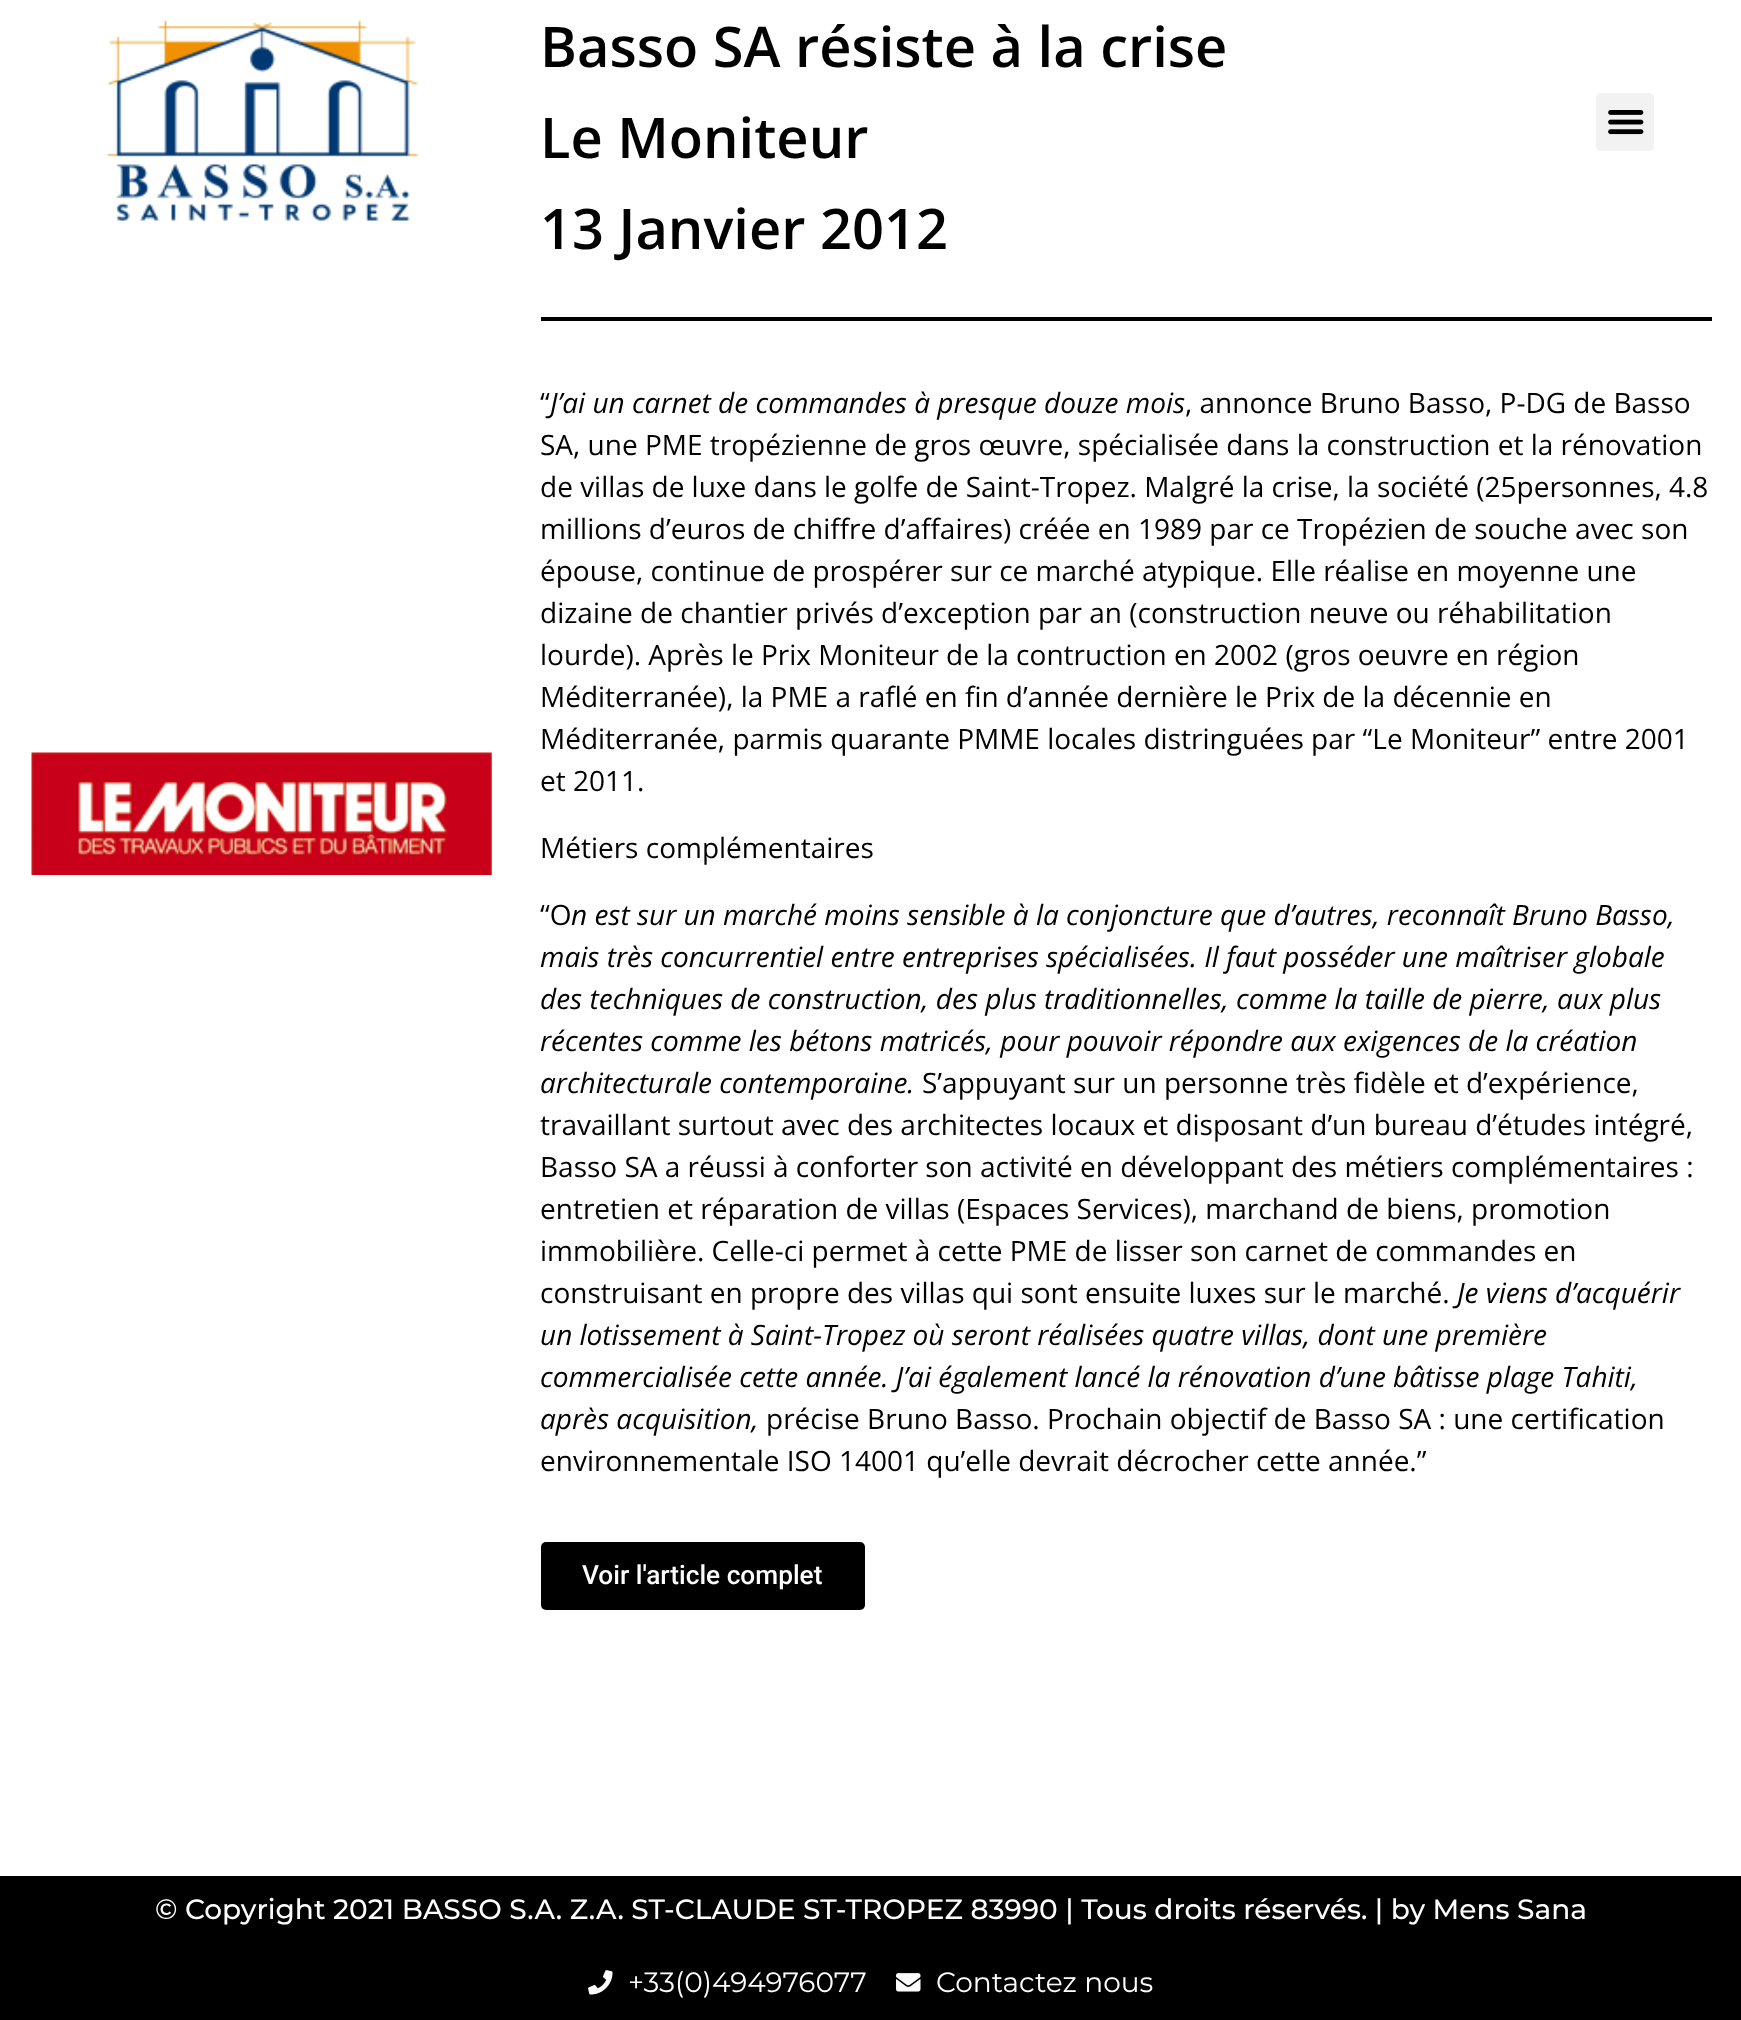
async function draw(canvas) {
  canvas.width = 1741
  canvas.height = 2020
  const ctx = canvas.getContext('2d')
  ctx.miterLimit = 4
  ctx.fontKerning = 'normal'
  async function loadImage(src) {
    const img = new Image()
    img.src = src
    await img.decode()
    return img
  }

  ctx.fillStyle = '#fff'
  ctx.fillRect(0, 0, 1741, 2020)
  ctx.drawImage(await loadImage('image0.png'), 106, 20, 313, 201)
  ctx.fillStyle = '#f2f2f2'
  ctx.beginPath()
  ctx.roundRect(1596, 93, 58, 58, 5)
  ctx.fill()
  ctx.drawImage(await loadImage('image1.png'), 1608, 110, 36, 25)
  ctx.drawImage(await loadImage('image2.png'), 31, 752, 461, 123)
  ctx.font = '600 56px Open Sans'
  ctx.fillStyle = '#000'
  ctx.fillText('Basso SA résiste à la crise', 540, 67)
  ctx.fillText('Le Moniteur', 540, 158)
  ctx.fillText('13 Janvier 2012', 540, 249)
  ctx.fillRect(541, 317, 1171, 4)
  ctx.font = '28px Open Sans'
  ctx.fillText('“', 540, 413)
  ctx.font = 'italic 28px Open Sans'
  ctx.fillText('J’ai un carnet de commandes à presque douze mois', 550, 413)
  ctx.font = '28px Open Sans'
  ctx.fillText(', annonce Bruno Basso, P-DG de Basso', 1185, 413)
  ctx.fillText('SA, une PME tropézienne de gros œuvre, spécialisée dans la construction et la rénovation', 540, 455)
  ctx.fillText('de villas de luxe dans le golfe de Saint-Tropez. Malgré la crise, la société (25personnes, 4.8', 540, 497)
  ctx.fillText('millions d’euros de chiffre d’affaires) créée en 1989 par ce Tropézien de souche avec son', 540, 539)
  ctx.fillText('épouse, continue de prospérer sur ce marché atypique. Elle réalise en moyenne une', 540, 581)
  ctx.fillText('dizaine de chantier privés d’exception par an (construction neuve ou réhabilitation', 540, 623)
  ctx.fillText('lourde). Après le Prix Moniteur de la contruction en 2002 (gros oeuvre en région', 540, 665)
  ctx.fillText('Méditerranée), la PME a raflé en fin d’année dernière le Prix de la décennie en', 540, 707)
  ctx.fillText('Méditerranée, parmis quarante PMME locales distringuées par “Le Moniteur” entre 2001', 540, 749)
  ctx.fillText('et 2011.', 540, 791)
  ctx.fillText('Métiers complémentaires', 540, 858)
  ctx.fillText('“O', 540, 925)
  ctx.font = 'italic 28px Open Sans'
  ctx.fillText('n est sur un marché moins sensible à la conjoncture que d’autres, reconnaît Bruno Basso,', 571, 925)
  ctx.fillText('mais très concurrentiel entre entreprises spécialisées. Il faut posséder une maîtriser globale', 540, 967)
  ctx.fillText('des techniques de construction, des plus traditionnelles, comme la taille de pierre, aux plus', 540, 1009)
  ctx.fillText('récentes comme les bétons matricés, pour pouvoir répondre aux exigences de la création', 540, 1051)
  ctx.fillText('architecturale contemporaine.', 540, 1093)
  ctx.font = '28px Open Sans'
  ctx.fillText('S’appuyant sur un personne très fidèle et d’expérience,', 922, 1093)
  ctx.fillText('travaillant surtout avec des architectes locaux et disposant d’un bureau d’études intégré,', 540, 1135)
  ctx.fillText('Basso SA a réussi à conforter son activité en développant des métiers complémentaires :', 540, 1177)
  ctx.fillText('entretien et réparation de villas (Espaces Services), marchand de biens, promotion', 540, 1219)
  ctx.fillText('immobilière. Celle-ci permet à cette PME de lisser son carnet de commandes en', 540, 1261)
  ctx.fillText('construisant en propre des villas qui sont ensuite luxes sur le marché.', 540, 1303)
  ctx.font = 'italic 28px Open Sans'
  ctx.fillText('Je viens d’acquérir', 1457, 1303)
  ctx.fillText('un lotissement à Saint-Tropez où seront réalisées quatre villas, dont une première', 540, 1345)
  ctx.fillText('commercialisée cette année. J’ai également lancé la rénovation d’une bâtisse plage Tahiti,', 540, 1387)
  ctx.fillText('après acquisition,', 540, 1429)
  ctx.font = '28px Open Sans'
  ctx.fillText('précise Bruno Basso. Prochain objectif de Basso SA : une certification', 766, 1429)
  ctx.fillText('environnementale ISO 14001 qu’elle devrait décrocher cette année.”', 540, 1471)
  ctx.beginPath()
  ctx.roundRect(541, 1542, 324, 68, 5)
  ctx.fill()
  ctx.font = '500 26.25px Roboto'
  ctx.fillStyle = '#fff'
  ctx.fillText('Voir l\'article complet', 582, 1584)
  ctx.fillStyle = '#000'
  ctx.fillRect(0, 1876, 1741, 144)
  ctx.font = '500 28px Montserrat'
  ctx.fillStyle = '#fff'
  ctx.fillText('© Copyright 2021 BASSO S.A. Z.A. ST-CLAUDE ST-TROPEZ 83990 | Tous droits réservés. | by Mens Sana', 155, 1919)
  ctx.drawImage(await loadImage('image3.png'), 588, 1970, 25, 25)
  ctx.font = '28px Montserrat'
  ctx.fillText('+33(0)494976077', 628, 1992)
  ctx.drawImage(await loadImage('image4.png'), 896, 1973, 25, 19)
  ctx.fillText('Contactez nous', 936, 1992)
}

draw(document.querySelector('canvas'))
